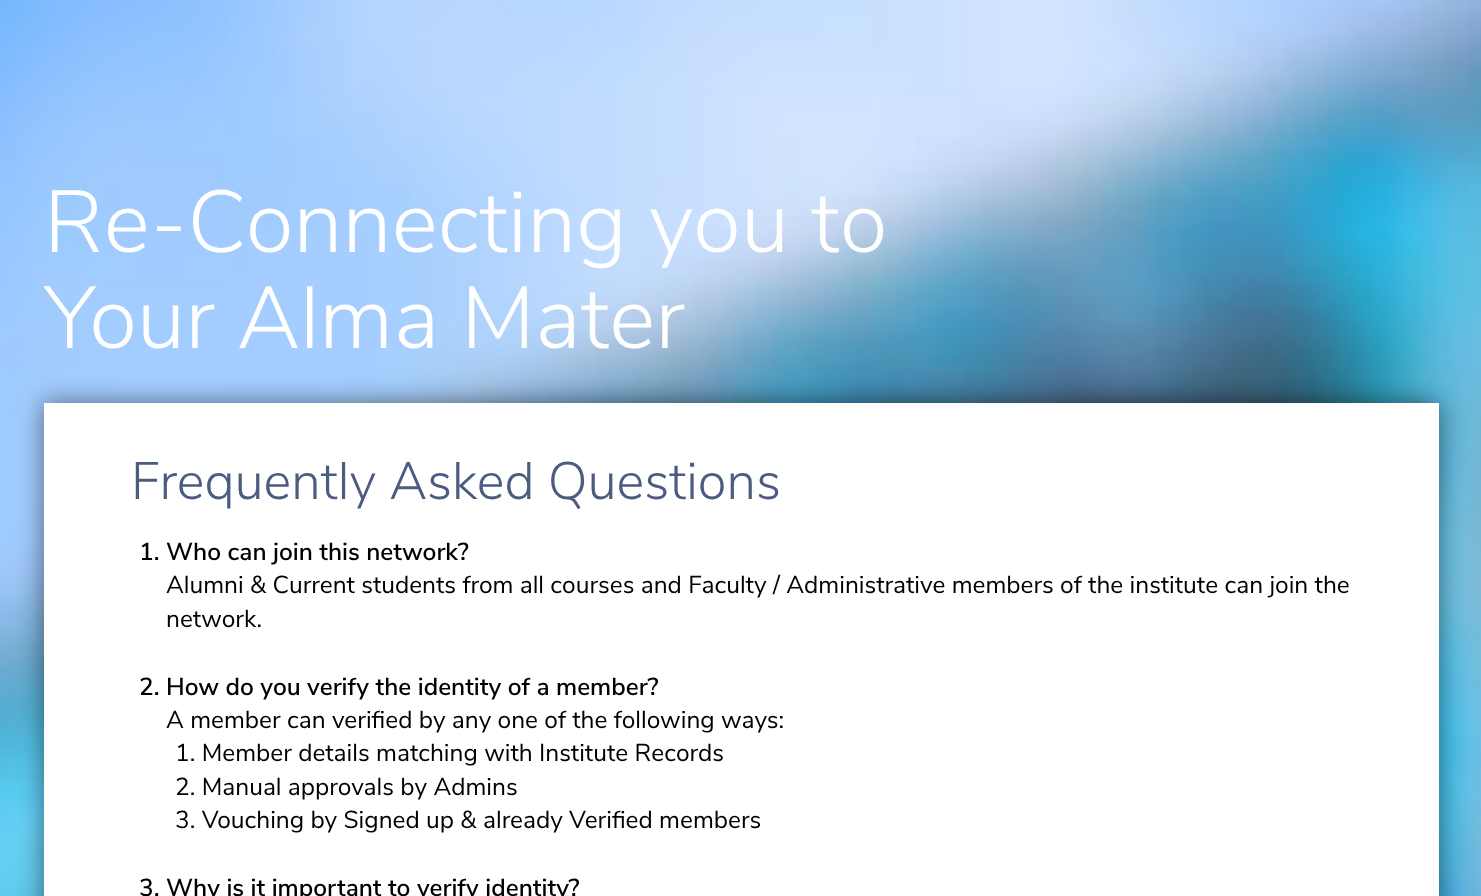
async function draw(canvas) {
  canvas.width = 1481
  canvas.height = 896
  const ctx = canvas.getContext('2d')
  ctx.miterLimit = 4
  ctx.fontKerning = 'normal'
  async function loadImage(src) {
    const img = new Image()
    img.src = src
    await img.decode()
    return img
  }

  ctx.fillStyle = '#fff'
  ctx.fillRect(0, 0, 1481, 896)
  ctx.drawImage(await loadImage('image0.png'), 0, 0, 1481, 896)
  ctx.font = '300 87.5px Nunito Sans'
  ctx.fillText('Re-Connecting you to', 44, 252)
  ctx.fillText('Your Alma Mater', 44, 348)
  ctx.fillStyle = '#00000080'
  ctx.filter = 'blur(13px)'
  ctx.beginPath()
  ctx.rect(44, 403, 1395, 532)
  ctx.fill()
  ctx.filter = 'none'
  ctx.fillStyle = '#fff'
  ctx.fillRect(44, 403, 1395, 493)
  ctx.font = '300 52.5px Nunito Sans'
  ctx.fillStyle = '#4c5c80'
  ctx.fillText('Frequently Asked Questions', 131, 499)
  ctx.font = '600 24.5px Nunito Sans'
  ctx.fillStyle = '#000'
  ctx.fillText('1. Who can join this network?', 139, 560)
  ctx.font = '24.5px Nunito Sans'
  ctx.fillText('Alumni & Current students from all courses and Faculty / Administrative members of the institute can join the', 166, 593)
  ctx.fillText('network.', 166, 627)
  ctx.font = '600 24.5px Nunito Sans'
  ctx.fillText('2. How do you verify the identity of a member?', 139, 695)
  ctx.font = '24.5px Nunito Sans'
  ctx.fillText('A member can verified by any one of the following ways:', 166, 728)
  ctx.fillText('1. Member details matching with Institute Records', 175, 761)
  ctx.fillText('2. Manual approvals by Admins', 175, 795)
  ctx.fillText('3. Vouching by Signed up & already Verified members', 175, 828)
  ctx.font = '600 24.5px Nunito Sans'
  ctx.fillText('3. Why is it important to verify identity?', 139, 896)
}

draw(document.querySelector('canvas'))
